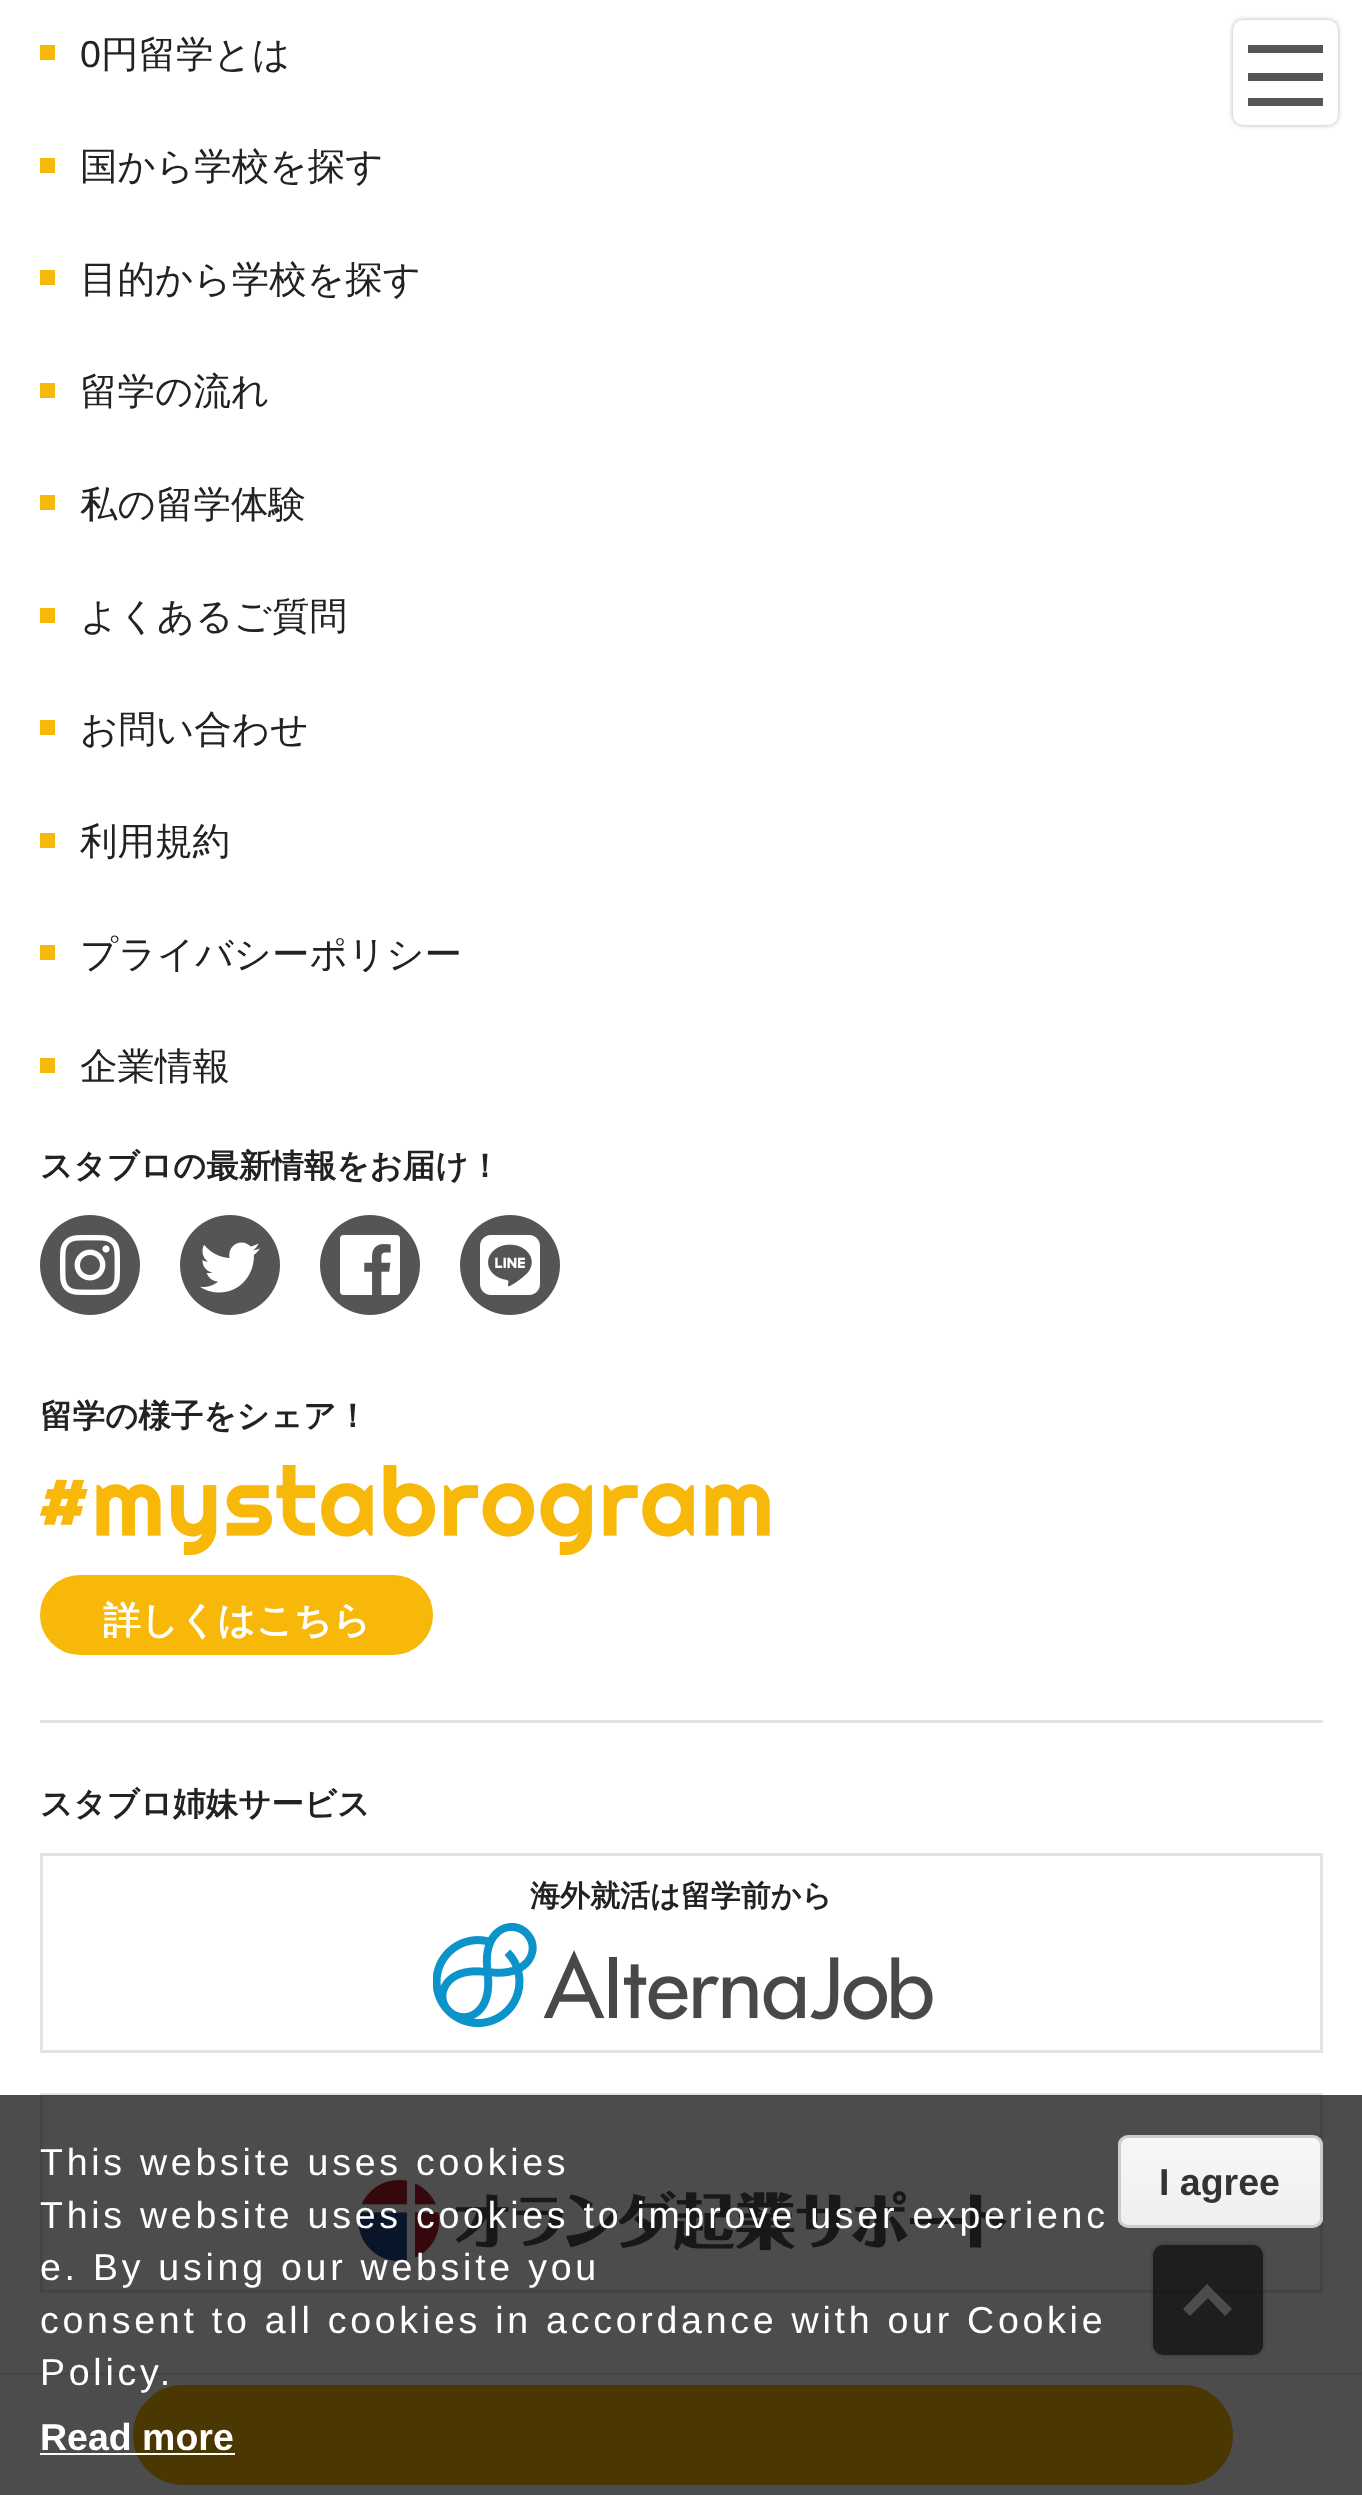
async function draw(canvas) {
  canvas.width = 1362
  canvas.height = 2495
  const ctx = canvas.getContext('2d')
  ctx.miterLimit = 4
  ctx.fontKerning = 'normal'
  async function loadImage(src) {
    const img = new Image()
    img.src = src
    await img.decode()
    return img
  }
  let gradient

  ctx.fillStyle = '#fff'
  ctx.fillRect(0, 0, 1362, 2495)
  ctx.fillStyle = '#f7b809'
  ctx.fillRect(40, 45, 15, 15)
  ctx.font = '37.5px Liberation Sans'
  ctx.fillStyle = '#222'
  ctx.fillText('0', 80, 67)
  ctx.font = '500 37.5px WenQuanYi Zen Hei'
  ctx.fillText('円留学とは', 101, 67)
  ctx.fillStyle = '#f7b809'
  ctx.fillRect(40, 158, 15, 15)
  ctx.fillStyle = '#222'
  ctx.fillText('国から学校を探す', 80, 179)
  ctx.fillStyle = '#f7b809'
  ctx.fillRect(40, 270, 15, 15)
  ctx.fillStyle = '#222'
  ctx.fillText('目的から学校を探す', 80, 292)
  ctx.fillStyle = '#f7b809'
  ctx.fillRect(40, 383, 15, 15)
  ctx.fillStyle = '#222'
  ctx.fillText('留学の流れ', 80, 404)
  ctx.fillStyle = '#f7b809'
  ctx.fillRect(40, 495, 15, 15)
  ctx.fillStyle = '#222'
  ctx.fillText('私の留学体験', 80, 517)
  ctx.fillStyle = '#f7b809'
  ctx.fillRect(40, 608, 15, 15)
  ctx.fillStyle = '#222'
  ctx.fillText('よくあるご質問', 80, 629)
  ctx.fillStyle = '#f7b809'
  ctx.fillRect(40, 720, 15, 15)
  ctx.fillStyle = '#222'
  ctx.fillText('お問い合わせ', 80, 742)
  ctx.fillStyle = '#f7b809'
  ctx.fillRect(40, 833, 15, 15)
  ctx.fillStyle = '#222'
  ctx.fillText('利用規約', 80, 854)
  ctx.fillStyle = '#f7b809'
  ctx.fillRect(40, 945, 15, 15)
  ctx.fillStyle = '#222'
  ctx.fillText('プライバシーポリシー', 80, 967)
  ctx.fillStyle = '#f7b809'
  ctx.fillRect(40, 1058, 15, 15)
  ctx.fillStyle = '#222'
  ctx.fillText('企業情報', 80, 1079)
  ctx.fillStyle = '#e1e5e6'
  ctx.fillRect(40, 1720, 1283, 3)
  ctx.font = 'bold 32.5px WenQuanYi Zen Hei'
  ctx.fillStyle = '#222'
  ctx.fillText('スタブロの最新情報をお届け！', 40, 1177)
  ctx.drawImage(await loadImage('image0.png'), 40, 1215, 100, 100)
  ctx.drawImage(await loadImage('image1.png'), 180, 1215, 100, 100)
  ctx.drawImage(await loadImage('image2.png'), 320, 1215, 100, 100)
  ctx.drawImage(await loadImage('image3.png'), 460, 1215, 100, 100)
  ctx.fillText('留学の様子をシェア！', 40, 1427)
  ctx.drawImage(await loadImage('image4.png'), 40, 1465, 730, 90)
  ctx.fillStyle = '#f7b809'
  ctx.beginPath()
  ctx.roundRect(41.5, 1576.5, 390, 77, 38.5)
  ctx.fill()
  ctx.strokeStyle = '#f7b809'
  ctx.lineWidth = 3
  ctx.stroke()
  ctx.font = 'bold 37.5px WenQuanYi Zen Hei'
  ctx.fillStyle = '#fff'
  ctx.fillText('詳しくはこちら', 103, 1633)
  ctx.font = 'bold 32.5px WenQuanYi Zen Hei'
  ctx.fillStyle = '#222'
  ctx.fillText('スタブロ姉妹サービス', 40, 1815)
  ctx.strokeStyle = '#e1e5e6'
  ctx.strokeRect(41.5, 1854.5, 1280, 197)
  ctx.font = 'bold 30px WenQuanYi Zen Hei'
  ctx.fillText('海外就活は留学前から', 530, 1906)
  ctx.drawImage(await loadImage('image5.png'), 433, 1923, 500, 105)
  ctx.strokeRect(41.5, 2094.5, 1280, 197)
  ctx.drawImage(await loadImage('image6.png'), 358, 2180, 649, 82)
  ctx.fillStyle = '#0000004d'
  ctx.filter = 'blur(2.5px)'
  ctx.beginPath()
  ctx.roundRect(1233, 20, 105, 105, 10)
  ctx.fill()
  ctx.filter = 'none'
  ctx.fillStyle = '#fff'
  ctx.beginPath()
  ctx.roundRect(1233, 20, 105, 105, 10)
  ctx.fill()
  ctx.fillStyle = '#555'
  ctx.fillRect(1248, 45, 75, 8)
  ctx.fillRect(1248, 98, 75, 8)
  ctx.fillRect(1248, 73, 75, 8)
  ctx.save()
  ctx.beginPath()
  ctx.moveTo(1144, 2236)
  ctx.lineTo(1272, 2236)
  ctx.lineTo(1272, 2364)
  ctx.lineTo(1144, 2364)
  ctx.closePath()
  ctx.moveTo(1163, 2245)
  ctx.lineTo(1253, 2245)
  ctx.bezierCurveTo(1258.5, 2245, 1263, 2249.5, 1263, 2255)
  ctx.lineTo(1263, 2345)
  ctx.bezierCurveTo(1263, 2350.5, 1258.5, 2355, 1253, 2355)
  ctx.lineTo(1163, 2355)
  ctx.bezierCurveTo(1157.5, 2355, 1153, 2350.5, 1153, 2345)
  ctx.lineTo(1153, 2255)
  ctx.bezierCurveTo(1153, 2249.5, 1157.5, 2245, 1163, 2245)
  ctx.closePath()
  ctx.clip('evenodd')
  ctx.fillStyle = '#0000004d'
  ctx.filter = 'blur(2.5px)'
  ctx.beginPath()
  ctx.roundRect(1153, 2245, 110, 110, 10)
  ctx.fill()
  ctx.filter = 'none'
  ctx.restore()
  ctx.fillStyle = '#00000099'
  ctx.beginPath()
  ctx.roundRect(1153, 2245, 110, 110, 10)
  ctx.fill()
  ctx.fillStyle = '#fff'
  ctx.beginPath()
  ctx.moveTo(1232, 2309)
  ctx.lineTo(1207, 2284)
  ctx.lineTo(1183, 2309)
  ctx.lineTo(1190, 2316)
  ctx.lineTo(1208, 2298)
  ctx.lineTo(1225, 2316)
  ctx.closePath()
  ctx.fill()
  ctx.fillStyle = '#0000004d'
  ctx.filter = 'blur(2.5px)'
  ctx.beginPath()
  ctx.rect(0, 2375, 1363, 120)
  ctx.fill()
  ctx.filter = 'none'
  ctx.fillStyle = '#fff'
  ctx.fillRect(0, 2375, 1362, 120)
  ctx.fillStyle = '#f7b809'
  ctx.beginPath()
  ctx.roundRect(134.5, 2386.5, 1097, 97, 48.5)
  ctx.fill()
  ctx.strokeStyle = '#f7b809'
  ctx.stroke()
  ctx.fillStyle = '#000000b3'
  ctx.fillRect(0, 2095, 1362, 400)
  ctx.letterSpacing = '3.75px'
  ctx.font = '37.5px Liberation Sans'
  ctx.fillStyle = '#fff'
  ctx.fillText('This website uses cookies', 40, 2175)
  ctx.fillText('This website uses cookies to improve user experienc', 40, 2228)
  ctx.fillText('e. By using our website you', 40, 2280)
  ctx.fillText('consent to all cookies in accordance with our Cookie', 40, 2333)
  ctx.fillText('Policy.', 40, 2385)
  ctx.letterSpacing = '0px'
  ctx.font = 'bold 37.5px Liberation Sans'
  ctx.fillText('Read more', 40, 2450)
  ctx.fillRect(40, 2453, 195, 2)
  ctx.save()
  ctx.beginPath()
  ctx.roundRect(1118, 2135, 205, 93, 10)
  ctx.clip()
  gradient = ctx.createLinearGradient(1220, 2138, 1220, 2225)
  gradient.addColorStop(0, '#f7f7f7')
  gradient.addColorStop(1, '#efefef')
  ctx.fillStyle = gradient
  ctx.fillRect(1118, 2138, 205, 87)
  ctx.restore()
  ctx.beginPath()
  ctx.roundRect(1119.5, 2136.5, 202, 90, 8.5)
  ctx.strokeStyle = '#cccdce'
  ctx.stroke()
  ctx.fillStyle = '#333'
  ctx.fillText('I agree', 1159, 2195)
}

draw(document.querySelector('canvas'))
